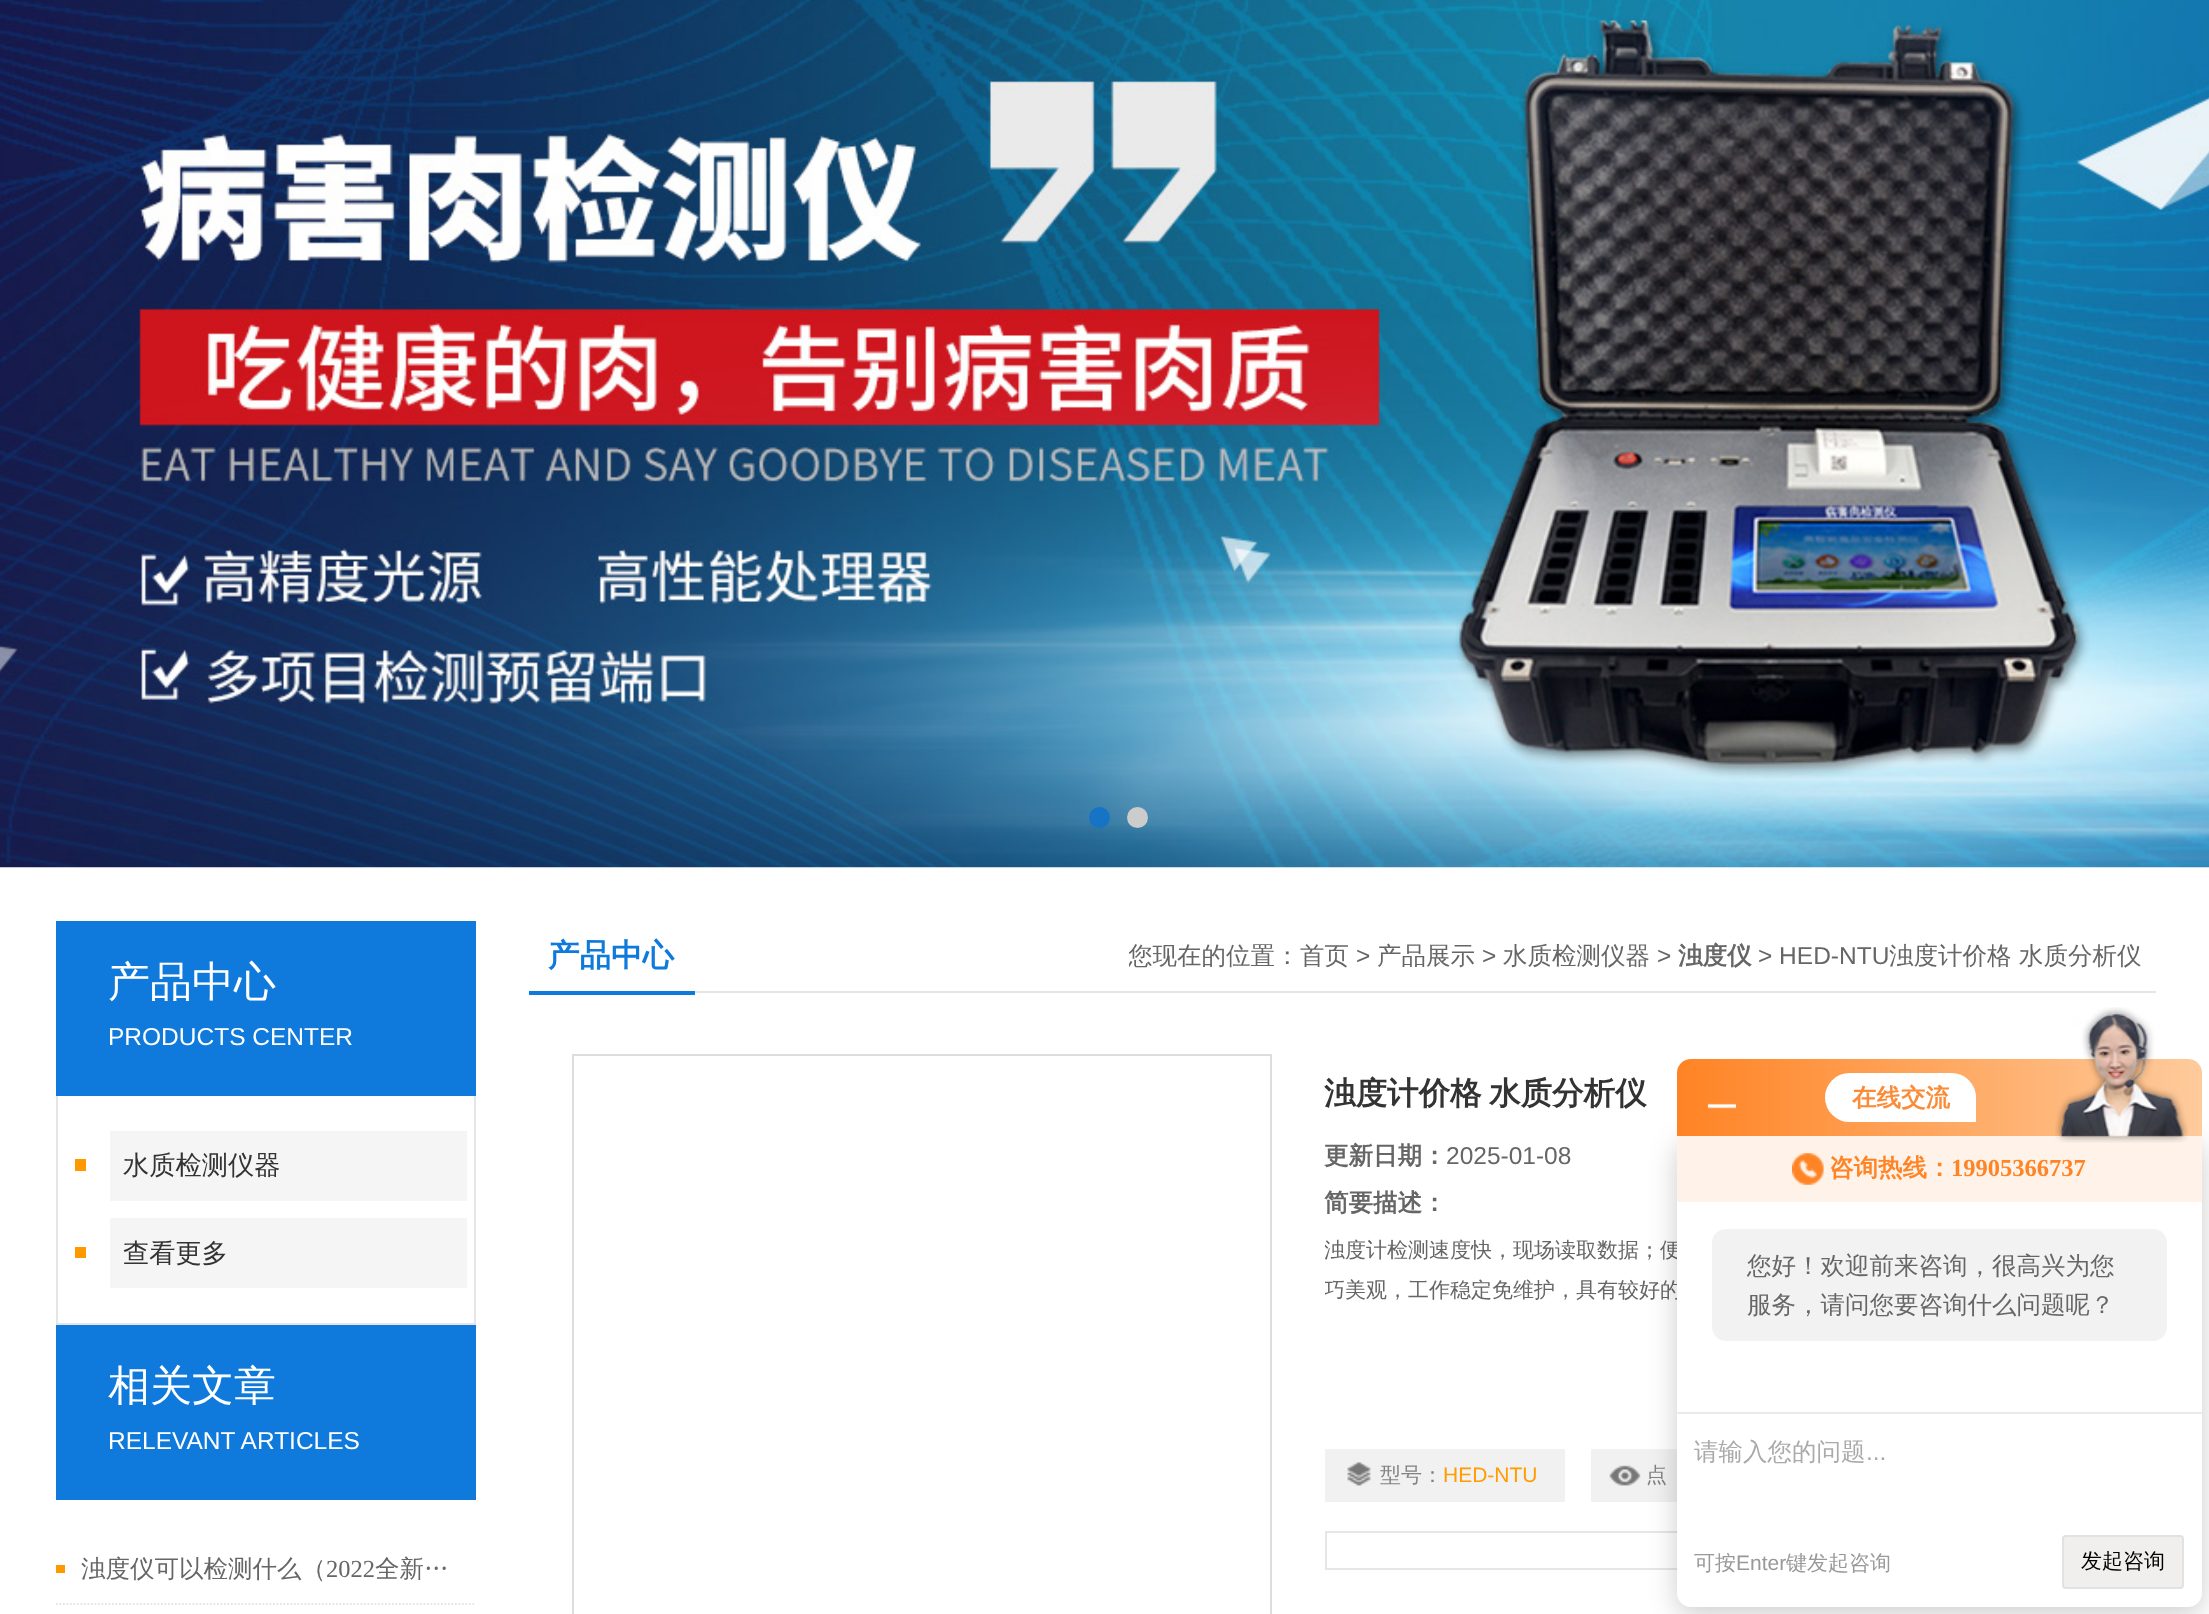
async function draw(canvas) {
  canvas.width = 2209
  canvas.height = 1614
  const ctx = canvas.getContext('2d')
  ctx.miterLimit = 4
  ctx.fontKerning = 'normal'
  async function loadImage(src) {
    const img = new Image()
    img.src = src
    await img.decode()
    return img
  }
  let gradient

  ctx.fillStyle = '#fff'
  ctx.fillRect(0, 0, 2209, 1614)
  ctx.drawImage(await loadImage('image0.png'), 0, 0, 2209, 868)
  ctx.fillStyle = '#1773c6'
  ctx.beginPath()
  ctx.arc(1099.5, 817.5, 10.5, 0, 2 * Math.PI)
  ctx.fill()
  ctx.fillStyle = '#ccc'
  ctx.beginPath()
  ctx.arc(1137.5, 817.5, 10.5, 0, 2 * Math.PI)
  ctx.fill()
  ctx.fillStyle = '#0f7adb'
  ctx.fillRect(56, 921, 420, 175)
  ctx.font = '500 42px WenQuanYi Zen Hei'
  ctx.fillStyle = '#fff'
  ctx.fillText('产品中心', 108, 996)
  ctx.font = '24.5px Liberation Sans'
  ctx.fillText('PRODUCTS CENTER', 108, 1045)
  ctx.fillStyle = '#e5e5e5'
  ctx.fillRect(474, 1096, 2, 229)
  ctx.fillRect(56, 1323, 420, 2)
  ctx.fillRect(56, 1096, 2, 229)
  ctx.fillStyle = '#f90'
  ctx.fillRect(75, 1159, 11, 12)
  ctx.fillStyle = '#f5f5f5'
  ctx.fillRect(110, 1131, 357, 70)
  ctx.font = '500 26.25px WenQuanYi Zen Hei'
  ctx.fillStyle = '#333'
  ctx.fillText('水质检测仪器', 123, 1174)
  ctx.fillStyle = '#f90'
  ctx.fillRect(75, 1247, 11, 11)
  ctx.fillStyle = '#f5f5f5'
  ctx.fillRect(110, 1218, 357, 70)
  ctx.fillStyle = '#333'
  ctx.fillText('查看更多', 123, 1262)
  ctx.fillStyle = '#0f7adb'
  ctx.fillRect(56, 1325, 420, 175)
  ctx.font = '500 42px WenQuanYi Zen Hei'
  ctx.fillStyle = '#fff'
  ctx.fillText('相关文章', 108, 1400)
  ctx.font = '24.5px Liberation Sans'
  ctx.fillText('RELEVANT ARTICLES', 108, 1449)
  ctx.fillStyle = '#f90'
  ctx.fillRect(56, 1565, 9, 8)
  ctx.beginPath()
  ctx.moveTo(56, 1604)
  ctx.lineTo(476, 1604)
  ctx.strokeStyle = '#e5e5e5'
  ctx.lineWidth = 1.8
  ctx.setLineDash([1.75, 1.75])
  ctx.stroke()
  ctx.font = '500 24.5px WenQuanYi Zen Hei'
  ctx.fillStyle = '#666'
  ctx.fillText('浊度仪可以检测什么（', 81, 1577)
  ctx.font = '24.5px Liberation Serif'
  ctx.fillText('2022', 326, 1577)
  ctx.font = '500 24.5px WenQuanYi Zen Hei'
  ctx.fillText('全新…', 375, 1577)
  ctx.fillStyle = '#e5e5e5'
  ctx.fillRect(695, 991, 1461, 2)
  ctx.fillStyle = '#0f7adb'
  ctx.fillRect(529, 991, 166, 4)
  ctx.font = 'bold 31.5px WenQuanYi Zen Hei'
  ctx.fillText('产品中心', 548, 966)
  ctx.save()
  ctx.beginPath()
  ctx.rect(1129, 921, 1013, 70)
  ctx.clip()
  ctx.font = '500 24.5px WenQuanYi Zen Hei'
  ctx.fillStyle = '#666'
  ctx.fillText('您现在的位置：', 1128, 964)
  ctx.restore()
  ctx.font = '500 24.5px WenQuanYi Zen Hei'
  ctx.fillStyle = '#666'
  ctx.fillText('首页', 1300, 964)
  ctx.font = '24.5px Liberation Sans'
  ctx.fillText('>', 1356, 964)
  ctx.font = '500 24.5px WenQuanYi Zen Hei'
  ctx.fillText('产品展示', 1377, 964)
  ctx.font = '24.5px Liberation Sans'
  ctx.fillText('>', 1482, 964)
  ctx.font = '500 24.5px WenQuanYi Zen Hei'
  ctx.fillText('水质检测仪器', 1503, 964)
  ctx.font = '24.5px Liberation Sans'
  ctx.fillText('>', 1657, 964)
  ctx.font = 'bold 24.5px WenQuanYi Zen Hei'
  ctx.fillText('浊度仪', 1678, 964)
  ctx.font = '24.5px Liberation Sans'
  ctx.fillText('> HED-NTU', 1758, 964)
  ctx.font = '500 24.5px WenQuanYi Zen Hei'
  ctx.fillText('浊度计价格', 1889, 964)
  ctx.fillText('水质分析仪', 2019, 964)
  ctx.strokeStyle = '#ddd'
  ctx.lineWidth = 2
  ctx.setLineDash([])
  ctx.strokeRect(573, 1055, 698, 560)
  ctx.wordSpacing = '-2px'
  ctx.font = 'bold 31.5px WenQuanYi Zen Hei'
  ctx.fillStyle = '#333'
  ctx.fillText('浊度计价格 水质分析仪', 1324, 1104)
  ctx.wordSpacing = '0px'
  ctx.font = 'bold 24.5px WenQuanYi Zen Hei'
  ctx.fillStyle = '#666'
  ctx.fillText('更新日期：', 1324, 1164)
  ctx.font = '24.5px Liberation Sans'
  ctx.fillText('2025-01-08', 1446, 1164)
  ctx.font = 'bold 24.5px WenQuanYi Zen Hei'
  ctx.fillText('简要描述：', 1324, 1211)
  ctx.save()
  ctx.beginPath()
  ctx.rect(1325, 1230, 787, 193)
  ctx.clip()
  ctx.font = '500 21px WenQuanYi Zen Hei'
  ctx.fillText('浊度计检测速度快，现场读取数据；便', 1324, 1257)
  ctx.fillText('巧美观，工作稳定免维护，具有较好的', 1324, 1297)
  ctx.restore()
  ctx.fillStyle = '#f1f1f1'
  ctx.fillRect(1325, 1449, 240, 53)
  ctx.drawImage(await loadImage('image1.png'), 1347, 1462, 24, 24)
  ctx.font = '500 21px WenQuanYi Zen Hei'
  ctx.fillStyle = '#828282'
  ctx.fillText('型号：', 1380, 1482)
  ctx.font = '21px Liberation Sans'
  ctx.fillStyle = '#ff9c00'
  ctx.fillText('HED-NTU', 1443, 1482)
  ctx.fillStyle = '#f1f1f1'
  ctx.fillRect(1591, 1449, 86, 53)
  ctx.drawImage(await loadImage('image2.png'), 1609, 1465, 32, 21)
  ctx.font = '500 21px WenQuanYi Zen Hei'
  ctx.fillStyle = '#828282'
  ctx.fillText('点', 1646, 1482)
  ctx.strokeStyle = '#e6e6e6'
  ctx.strokeRect(1326, 1532, 785, 37)
  ctx.fillStyle = '#00000033'
  ctx.filter = 'blur(14px)'
  ctx.beginPath()
  ctx.roundRect(1677, 1143, 525, 471, 14)
  ctx.fill()
  ctx.filter = 'none'
  gradient = ctx.createLinearGradient(1677, 1097, 2202, 1097)
  gradient.addColorStop(0, '#ff8324')
  gradient.addColorStop(1, '#fecb9c')
  ctx.fillStyle = gradient
  ctx.beginPath()
  ctx.roundRect(1677, 1059, 525, 77, [14, 14, 0, 0])
  ctx.fill()
  ctx.drawImage(await loadImage('image3.png'), 1708, 1103, 28, 6)
  ctx.fillStyle = '#fff'
  ctx.beginPath()
  ctx.roundRect(1825, 1073, 151, 49, [24.5, 24.5, 0, 24.5])
  ctx.fill()
  ctx.font = 'bold 24.5px WenQuanYi Zen Hei'
  ctx.fillStyle = '#fb8b36'
  ctx.fillText('在线交流', 1852, 1106)
  ctx.fillStyle = '#fff'
  ctx.beginPath()
  ctx.roundRect(1677, 1136, 525, 471, [0, 0, 14, 14])
  ctx.fill()
  ctx.fillStyle = '#fff3e9'
  ctx.fillRect(1677, 1136, 525, 66)
  ctx.drawImage(await loadImage('image4.png'), 2055, 1007, 133, 136)
  ctx.drawImage(await loadImage('image5.png'), 1792, 1153, 32, 32)
  ctx.fillStyle = '#ff8426'
  ctx.fillText('咨询热线：', 1829, 1176)
  ctx.font = 'bold 24.5px Liberation Serif'
  ctx.fillText('19905366737', 1951, 1176)
  ctx.fillStyle = '#f2f2f2'
  ctx.beginPath()
  ctx.roundRect(1712, 1229, 455, 112, 14)
  ctx.fill()
  ctx.font = '500 24.5px WenQuanYi Zen Hei'
  ctx.fillStyle = '#666'
  ctx.fillText('您好！欢迎前来咨询，很高兴为您', 1747, 1274)
  ctx.fillText('服务，请问您要咨询什么问题呢？', 1747, 1313)
  ctx.fillStyle = '#eaeaea'
  ctx.fillRect(1677, 1412, 525, 2)
  ctx.fillStyle = '#aaa'
  ctx.fillText('请输入您的问题', 1694, 1460)
  ctx.font = '24.5px Liberation Sans'
  ctx.fillText('...', 1866, 1460)
  ctx.font = '500 21px WenQuanYi Zen Hei'
  ctx.fillStyle = '#999'
  ctx.fillText('可按', 1694, 1570)
  ctx.font = '21px Liberation Sans'
  ctx.fillText('Enter', 1736, 1570)
  ctx.font = '500 21px WenQuanYi Zen Hei'
  ctx.fillText('键发起咨询', 1786, 1570)
  ctx.fillStyle = '#f0efed'
  ctx.beginPath()
  ctx.roundRect(2063, 1536, 120, 52, 3)
  ctx.fill()
  ctx.strokeStyle = '#e2e2e2'
  ctx.stroke()
  ctx.fillStyle = '#000'
  ctx.fillText('发起咨询', 2081, 1568)
}

draw(document.querySelector('canvas'))
